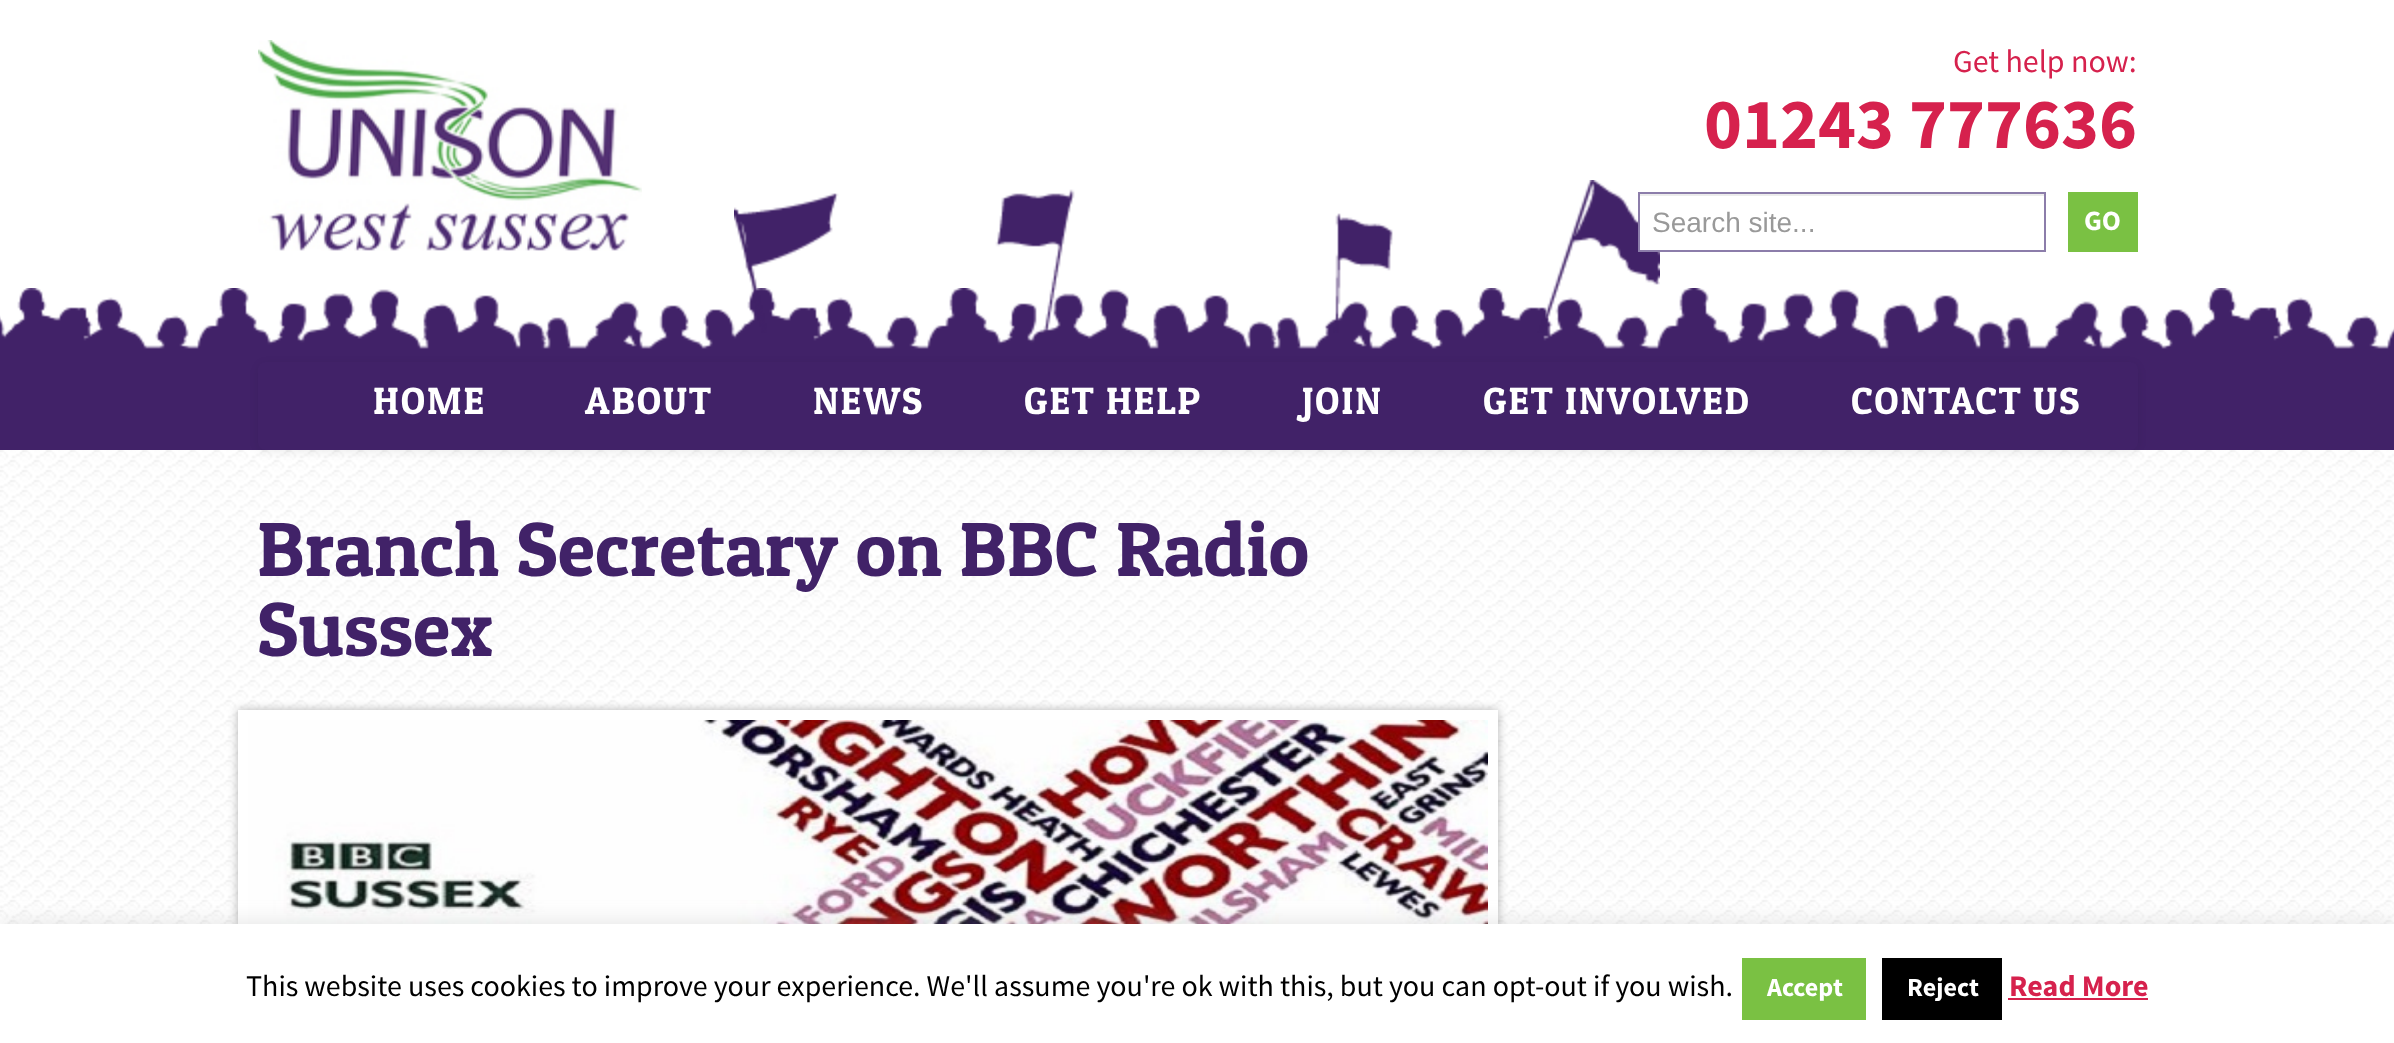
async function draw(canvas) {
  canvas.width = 2394
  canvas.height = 1043
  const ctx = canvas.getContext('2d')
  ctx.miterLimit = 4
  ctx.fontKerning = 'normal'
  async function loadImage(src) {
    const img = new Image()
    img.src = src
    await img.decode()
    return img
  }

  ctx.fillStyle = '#fff'
  ctx.fillRect(0, 0, 2394, 1043)
  ctx.drawImage(await loadImage('image0.png'), 0, 450, 2394, 474)
  ctx.drawImage(await loadImage('image1.png'), 0, 288, 2394, 162)
  ctx.drawImage(await loadImage('image2.png'), 734, 180, 926, 153)
  ctx.drawImage(await loadImage('image3.png'), 258, 40, 384, 211)
  ctx.font = '32px Source Sans Pro'
  ctx.fillStyle = '#d6214d'
  ctx.fillText('Get help now:', 1953, 72)
  ctx.font = 'bold 72px Source Sans Pro'
  ctx.fillText('01243 777636', 1704, 148)
  ctx.fillStyle = '#fff'
  ctx.fillRect(1640, 221, 20, 29)
  ctx.fillStyle = '#ececec'
  ctx.fillRect(1640, 194, 404, 2)
  ctx.strokeStyle = '#8c7daa'
  ctx.lineWidth = 2
  ctx.strokeRect(1639, 193, 406, 58)
  ctx.font = '28px Liberation Sans'
  ctx.fillStyle = '#999'
  ctx.fillText('Search site...', 1652, 232)
  ctx.fillStyle = '#7ac143'
  ctx.fillRect(2068, 192, 70, 60)
  ctx.font = 'bold 28px Source Sans Pro'
  ctx.fillStyle = '#fff'
  ctx.fillText('GO', 2084, 230)
  ctx.save()
  ctx.beginPath()
  ctx.moveTo(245, 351)
  ctx.lineTo(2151, 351)
  ctx.lineTo(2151, 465)
  ctx.lineTo(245, 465)
  ctx.closePath()
  ctx.moveTo(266, 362)
  ctx.lineTo(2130, 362)
  ctx.bezierCurveTo(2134.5, 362, 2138, 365.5, 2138, 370)
  ctx.lineTo(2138, 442)
  ctx.bezierCurveTo(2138, 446.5, 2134.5, 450, 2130, 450)
  ctx.lineTo(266, 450)
  ctx.bezierCurveTo(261.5, 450, 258, 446.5, 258, 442)
  ctx.lineTo(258, 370)
  ctx.bezierCurveTo(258, 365.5, 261.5, 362, 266, 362)
  ctx.closePath()
  ctx.clip('evenodd')
  ctx.fillStyle = '#00000012'
  ctx.filter = 'blur(4px)'
  ctx.beginPath()
  ctx.roundRect(258, 364, 1880, 88, 8)
  ctx.fill()
  ctx.filter = 'none'
  ctx.restore()
  ctx.letterSpacing = '1.9px'
  ctx.font = '38px Patua One'
  ctx.fillText('HOME', 373, 414)
  ctx.fillText('ABOUT', 585, 414)
  ctx.fillText('NEWS', 813, 414)
  ctx.fillText('GET HELP', 1024, 414)
  ctx.fillText('JOIN', 1302, 414)
  ctx.fillText('GET INVOLVED', 1483, 414)
  ctx.fillText('CONTACT US', 1851, 414)
  ctx.letterSpacing = '0px'
  ctx.font = '77px Patua One'
  ctx.fillStyle = '#412268'
  ctx.fillText('Branch Secretary on BBC Radio', 257, 576)
  ctx.fillText('Sussex', 257, 656)
  ctx.fillStyle = '#0000004d'
  ctx.filter = 'blur(5px)'
  ctx.beginPath()
  ctx.rect(238, 710, 1260, 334)
  ctx.fill()
  ctx.filter = 'none'
  ctx.strokeStyle = '#fff'
  ctx.lineWidth = 10
  ctx.strokeRect(243, 715, 1250, 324)
  ctx.drawImage(await loadImage('image4.png'), 248, 720, 1240, 204)
  ctx.fillStyle = '#acabab4d'
  ctx.filter = 'blur(10px)'
  ctx.beginPath()
  ctx.rect(0, 922, 2394, 120)
  ctx.fill()
  ctx.filter = 'none'
  ctx.fillStyle = '#fff'
  ctx.fillRect(0, 924, 2394, 119)
  ctx.font = '30px Source Sans Pro'
  ctx.fillStyle = '#000'
  ctx.fillText('This website uses cookies to improve your experience. We\'ll assume you\'re ok with this, but you can opt-out if you wish.', 246, 996)
  ctx.fillStyle = '#7ac143'
  ctx.fillRect(1742, 958, 124, 62)
  ctx.font = 'bold 26px Source Sans Pro'
  ctx.fillStyle = '#fff'
  ctx.fillText('Accept', 1767, 996)
  ctx.fillStyle = '#000'
  ctx.fillRect(1882, 958, 120, 62)
  ctx.fillStyle = '#fff'
  ctx.fillText('Reject', 1907, 996)
  ctx.font = 'bold 30px Source Sans Pro'
  ctx.fillStyle = '#d6214d'
  ctx.fillText('Read More', 2009, 996)
  ctx.fillRect(2008, 998, 140, 2)
}

draw(document.querySelector('canvas'))
